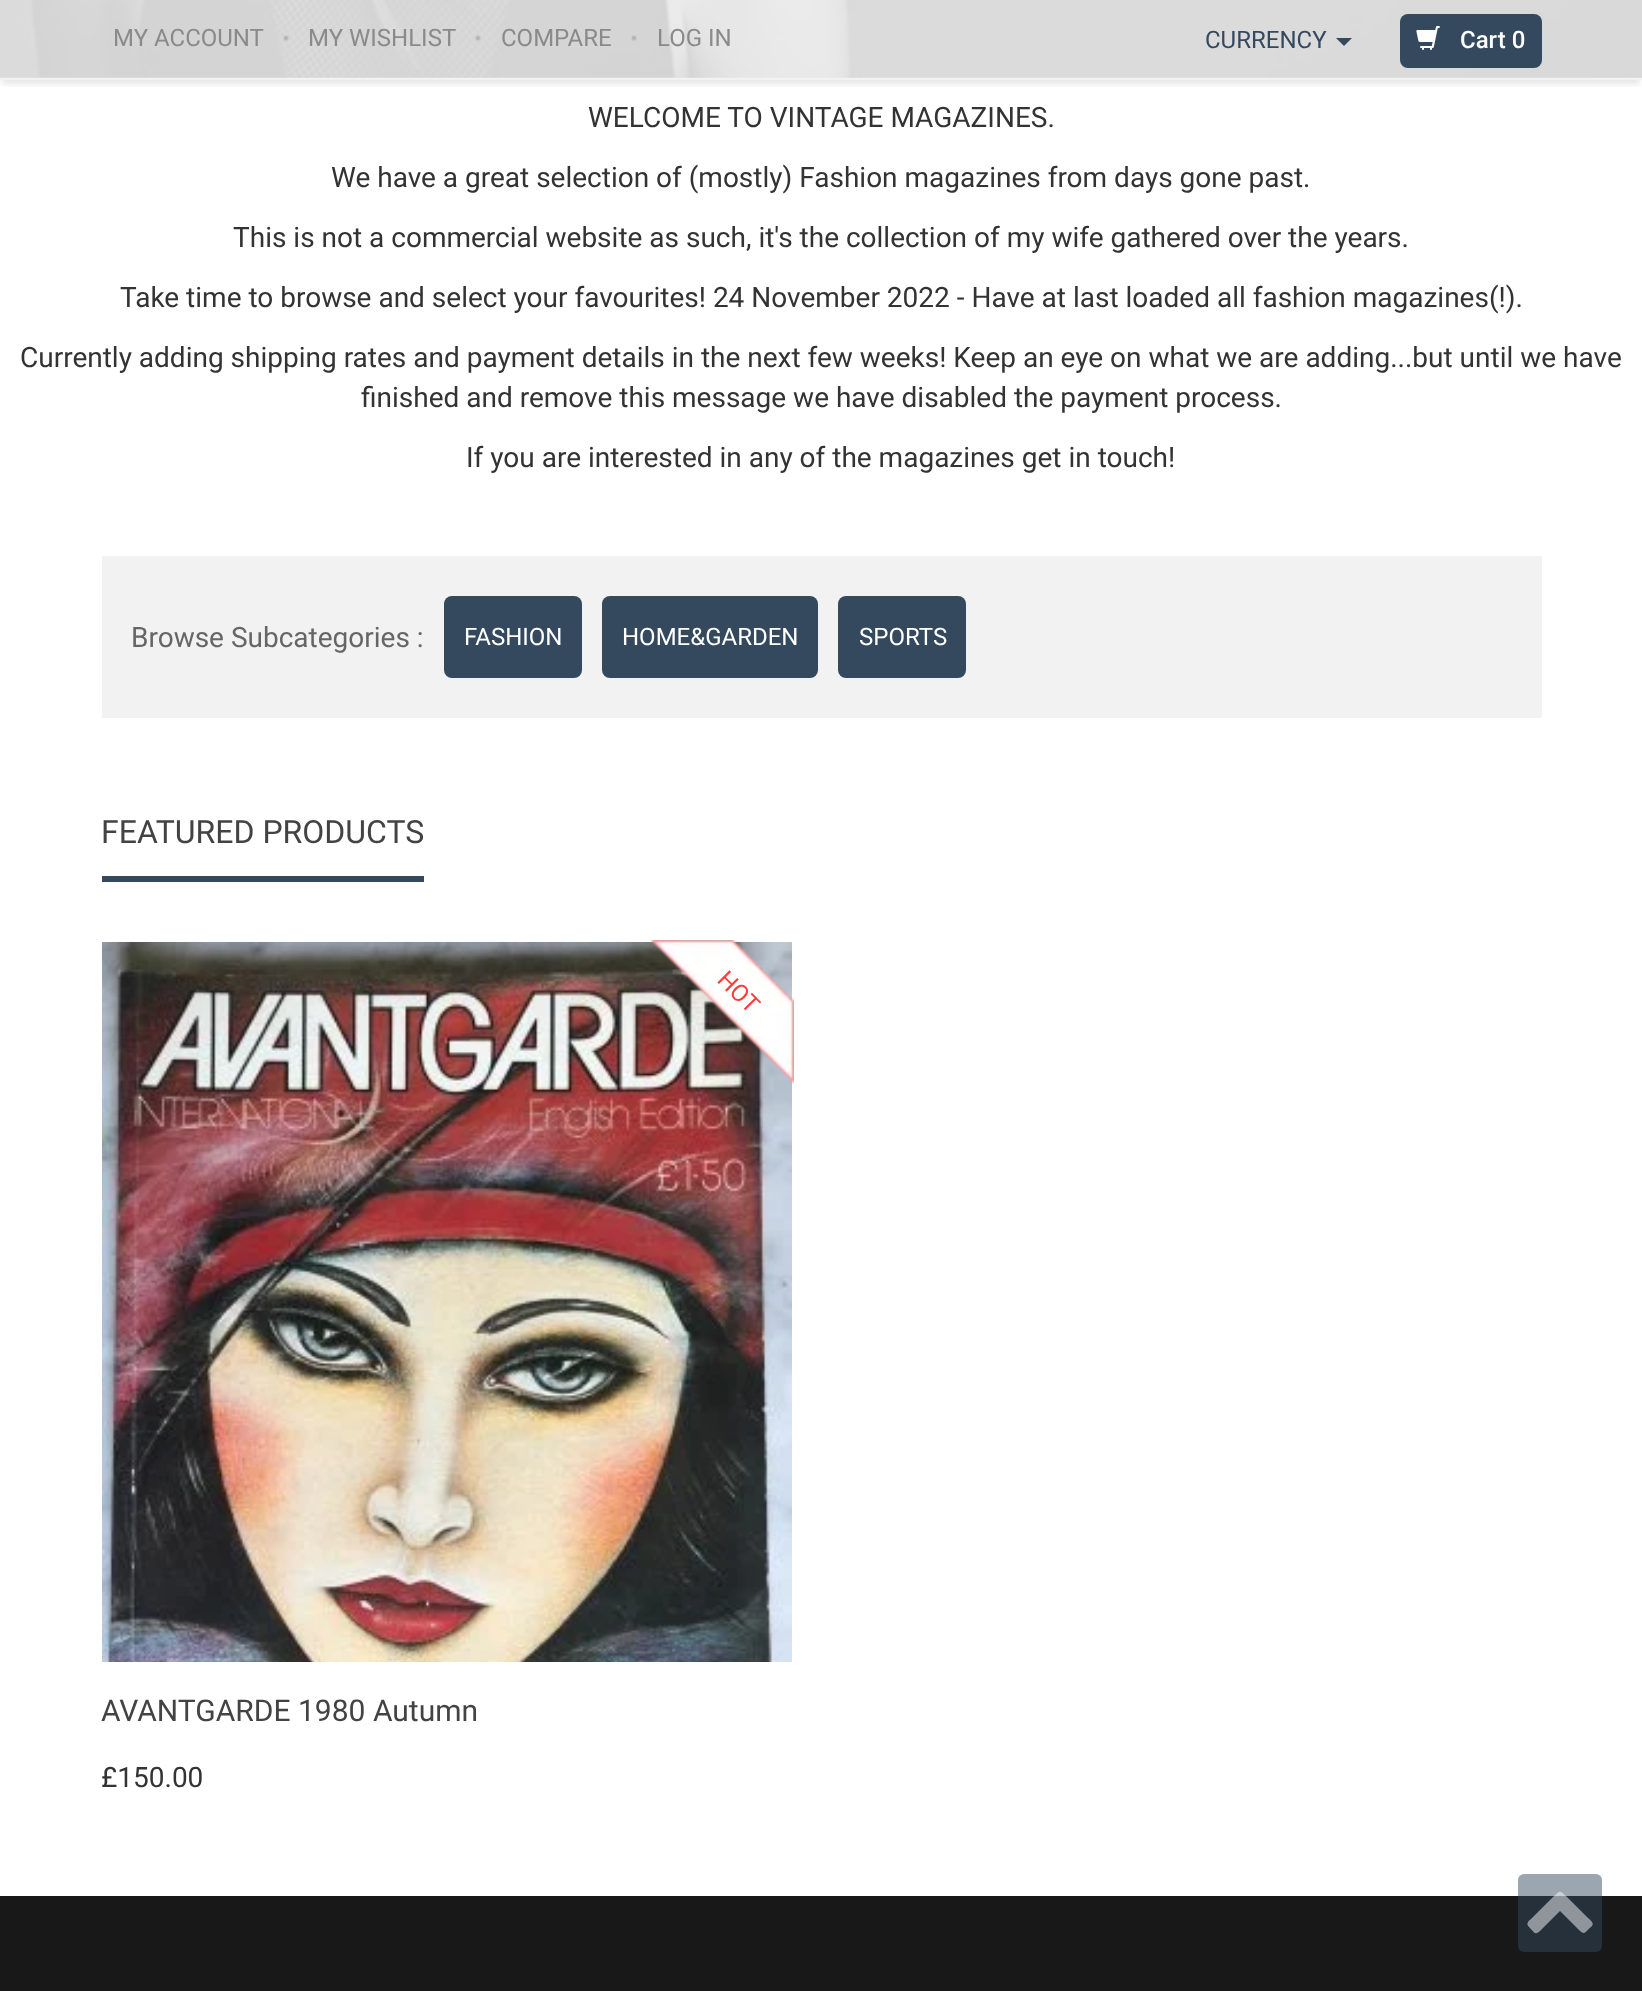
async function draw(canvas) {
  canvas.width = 1642
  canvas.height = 1991
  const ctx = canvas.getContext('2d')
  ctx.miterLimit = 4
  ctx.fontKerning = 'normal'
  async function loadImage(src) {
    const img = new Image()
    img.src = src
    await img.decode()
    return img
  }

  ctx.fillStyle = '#fff'
  ctx.fillRect(0, 0, 1642, 1991)
  ctx.fillStyle = '#f2f2f2'
  ctx.fillRect(0, 77, 1642, 3)
  ctx.drawImage(await loadImage('image0.png'), 0, 0, 1642, 78)
  ctx.save()
  ctx.beginPath()
  ctx.rect(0, 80, 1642, 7)
  ctx.clip()
  ctx.fillStyle = '#0000001a'
  ctx.filter = 'blur(3px)'
  ctx.beginPath()
  ctx.rect(2, 8, 1638, 76)
  ctx.fill()
  ctx.filter = 'none'
  ctx.restore()
  ctx.font = '24px Roboto'
  ctx.fillStyle = '#8b8a8a'
  ctx.fillText('MY ACCOUNT', 113, 46)
  ctx.drawImage(await loadImage('image1.png'), 283, 35, 6, 6)
  ctx.fillText('MY WISHLIST', 308, 46)
  ctx.drawImage(await loadImage('image2.png'), 475, 35, 6, 6)
  ctx.fillText('COMPARE', 501, 46)
  ctx.drawImage(await loadImage('image3.png'), 631, 35, 6, 6)
  ctx.fillText('LOG IN', 657, 46)
  ctx.fillStyle = '#34495e'
  ctx.fillText('CURRENCY', 1205, 48)
  ctx.beginPath()
  ctx.moveTo(1336, 38)
  ctx.lineTo(1352, 38)
  ctx.lineTo(1344, 46)
  ctx.closePath()
  ctx.fill()
  ctx.beginPath()
  ctx.roundRect(1400, 14, 142, 54, 8)
  ctx.fill()
  ctx.drawImage(await loadImage('image4.png'), 1416, 26, 24, 24)
  ctx.font = '500 24px Roboto'
  ctx.fillStyle = '#fff'
  ctx.fillText('Cart 0', 1460, 48)
  ctx.font = '28px Roboto'
  ctx.fillStyle = '#333'
  ctx.fillText('WELCOME TO VINTAGE MAGAZINES.', 588, 127)
  ctx.fillText('We have a great selection of (mostly) Fashion magazines from days gone past.', 331, 187)
  ctx.fillText('This is not a commercial website as such, it\'s the collection of my wife gathered over the years.', 233, 247)
  ctx.fillText('Take time to browse and select your favourites! 24 November 2022 - Have at last loaded all fashion magazines(!).', 120, 307)
  ctx.fillText('Currently adding shipping rates and payment details in the next few weeks! Keep an eye on what we are adding...but until we have', 20, 367)
  ctx.fillText('finished and remove this message we have disabled the payment process.', 361, 407)
  ctx.fillText('If you are interested in any of the magazines get in touch!', 466, 467)
  ctx.fillStyle = '#f2f2f2'
  ctx.fillRect(102, 556, 1440, 162)
  ctx.fillStyle = '#666'
  ctx.fillText('Browse Subcategories :', 131, 647)
  ctx.fillStyle = '#34495e'
  ctx.beginPath()
  ctx.roundRect(444, 596, 138, 82, 8)
  ctx.fill()
  ctx.font = '24px Roboto'
  ctx.fillStyle = '#fff'
  ctx.fillText('FASHION', 464, 645)
  ctx.fillStyle = '#34495e'
  ctx.beginPath()
  ctx.roundRect(602, 596, 216, 82, 8)
  ctx.fill()
  ctx.fillStyle = '#fff'
  ctx.fillText('HOME&GARDEN', 622, 645)
  ctx.fillStyle = '#34495e'
  ctx.beginPath()
  ctx.roundRect(838, 596, 128, 82, 8)
  ctx.fill()
  ctx.fillStyle = '#fff'
  ctx.fillText('SPORTS', 859, 645)
  ctx.fillStyle = '#34495e'
  ctx.fillRect(102, 876, 322, 6)
  ctx.font = '32px Roboto'
  ctx.fillStyle = '#434343'
  ctx.fillText('FEATURED PRODUCTS', 101, 843)
  ctx.drawImage(await loadImage('image5.png'), 102, 942, 690, 720)
  ctx.drawImage(await loadImage('image6.png'), 649, 940, 145, 145)
  ctx.font = '24px Roboto'
  ctx.fillStyle = '#ff3d3d'
  ctx.save()
  ctx.translate(716, 981)
  ctx.rotate(45 * Math.PI / 180)
  ctx.fillText('HOT', 0, 0)
  ctx.restore()
  ctx.font = '30px Roboto'
  ctx.fillStyle = '#434343'
  ctx.fillText('AVANTGARDE 1980 Autumn', 101, 1721)
  ctx.font = '28px Roboto'
  ctx.fillStyle = '#333'
  ctx.fillText('£150.00', 101, 1787)
  ctx.fillStyle = '#181818'
  ctx.fillRect(0, 1896, 1642, 95)
  ctx.fillStyle = '#34495e7d'
  ctx.beginPath()
  ctx.roundRect(1518, 1874, 84, 78, 6)
  ctx.fill()
  ctx.fillStyle = '#ffffff7d'
  ctx.beginPath()
  ctx.moveTo(1592, 1926)
  ctx.bezierCurveTo(1584, 1933, 1585, 1936, 1578, 1929)
  ctx.lineTo(1560, 1911)
  ctx.lineTo(1542, 1929)
  ctx.bezierCurveTo(1535, 1936, 1536, 1934, 1529, 1927)
  ctx.bezierCurveTo(1525, 1923, 1529, 1921, 1533, 1917)
  ctx.lineTo(1553, 1897)
  ctx.bezierCurveTo(1561, 1890, 1559, 1890, 1567, 1897)
  ctx.lineTo(1587, 1917)
  ctx.bezierCurveTo(1588, 1918, 1595, 1923, 1592, 1926)
  ctx.closePath()
  ctx.fill()
}

draw(document.querySelector('canvas'))
